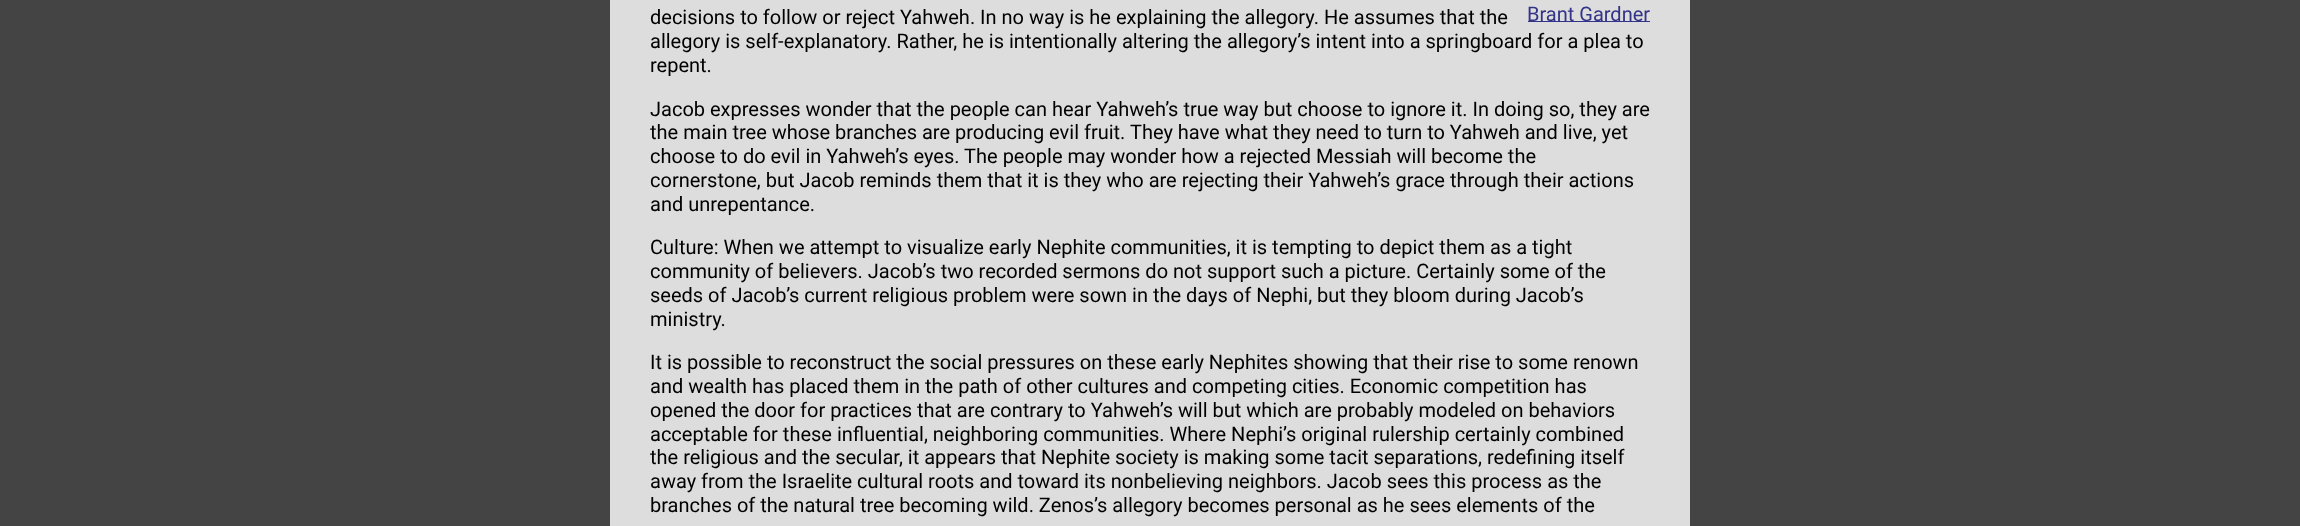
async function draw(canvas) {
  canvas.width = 2300
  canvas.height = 526
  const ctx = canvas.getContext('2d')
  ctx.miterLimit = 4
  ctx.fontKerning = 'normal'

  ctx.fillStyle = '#444'
  ctx.fillRect(0, 0, 2300, 526)
  ctx.fillStyle = '#ddd'
  ctx.fillRect(610, 0, 1080, 526)
  ctx.fillStyle = '#338'
  ctx.fillRect(1528, 21, 122, 1)
  ctx.font = '20px Roboto'
  ctx.fillText('Brant Gardner', 1527, 21)
  ctx.fillStyle = '#000'
  ctx.fillText('decisions to follow or reject Yahweh. In no way is he explaining the allegory. He assumes that the', 650, 24)
  ctx.fillText('allegory is self-explanatory. Rather, he is intentionally altering the allegory’s intent into a springboard for a plea to', 650, 48)
  ctx.fillText('repent.', 650, 72)
  ctx.fillText('Jacob expresses wonder that the people can hear Yahweh’s true way but choose to ignore it. In doing so, they are', 650, 116)
  ctx.fillText('the main tree whose branches are producing evil fruit. They have what they need to turn to Yahweh and live, yet', 650, 139)
  ctx.fillText('choose to do evil in Yahweh’s eyes. The people may wonder how a rejected Messiah will become the', 650, 163)
  ctx.fillText('cornerstone, but Jacob reminds them that it is they who are rejecting their Yahweh’s grace through their actions', 650, 187)
  ctx.fillText('and unrepentance.', 650, 211)
  ctx.fillText('Culture: When we attempt to visualize early Nephite communities, it is tempting to depict them as a tight', 650, 254)
  ctx.fillText('community of believers. Jacob’s two recorded sermons do not support such a picture. Certainly some of the', 650, 278)
  ctx.fillText('seeds of Jacob’s current religious problem were sown in the days of Nephi, but they bloom during Jacob’s', 650, 302)
  ctx.fillText('ministry.', 650, 326)
  ctx.fillText('It is possible to reconstruct the social pressures on these early Nephites showing that their rise to some renown', 650, 369)
  ctx.fillText('and wealth has placed them in the path of other cultures and competing cities. Economic competition has', 650, 393)
  ctx.fillText('opened the door for practices that are contrary to Yahweh’s will but which are probably modeled on behaviors', 650, 417)
  ctx.fillText('acceptable for these influential, neighboring communities. Where Nephi’s original rulership certainly combined', 650, 441)
  ctx.fillText('the religious and the secular, it appears that Nephite society is making some tacit separations, redefining itself', 650, 464)
  ctx.fillText('away from the Israelite cultural roots and toward its nonbelieving neighbors. Jacob sees this process as the', 650, 488)
  ctx.fillText('branches of the natural tree becoming wild. Zenos’s allegory becomes personal as he sees elements of the', 650, 512)
}

draw(document.querySelector('canvas'))
